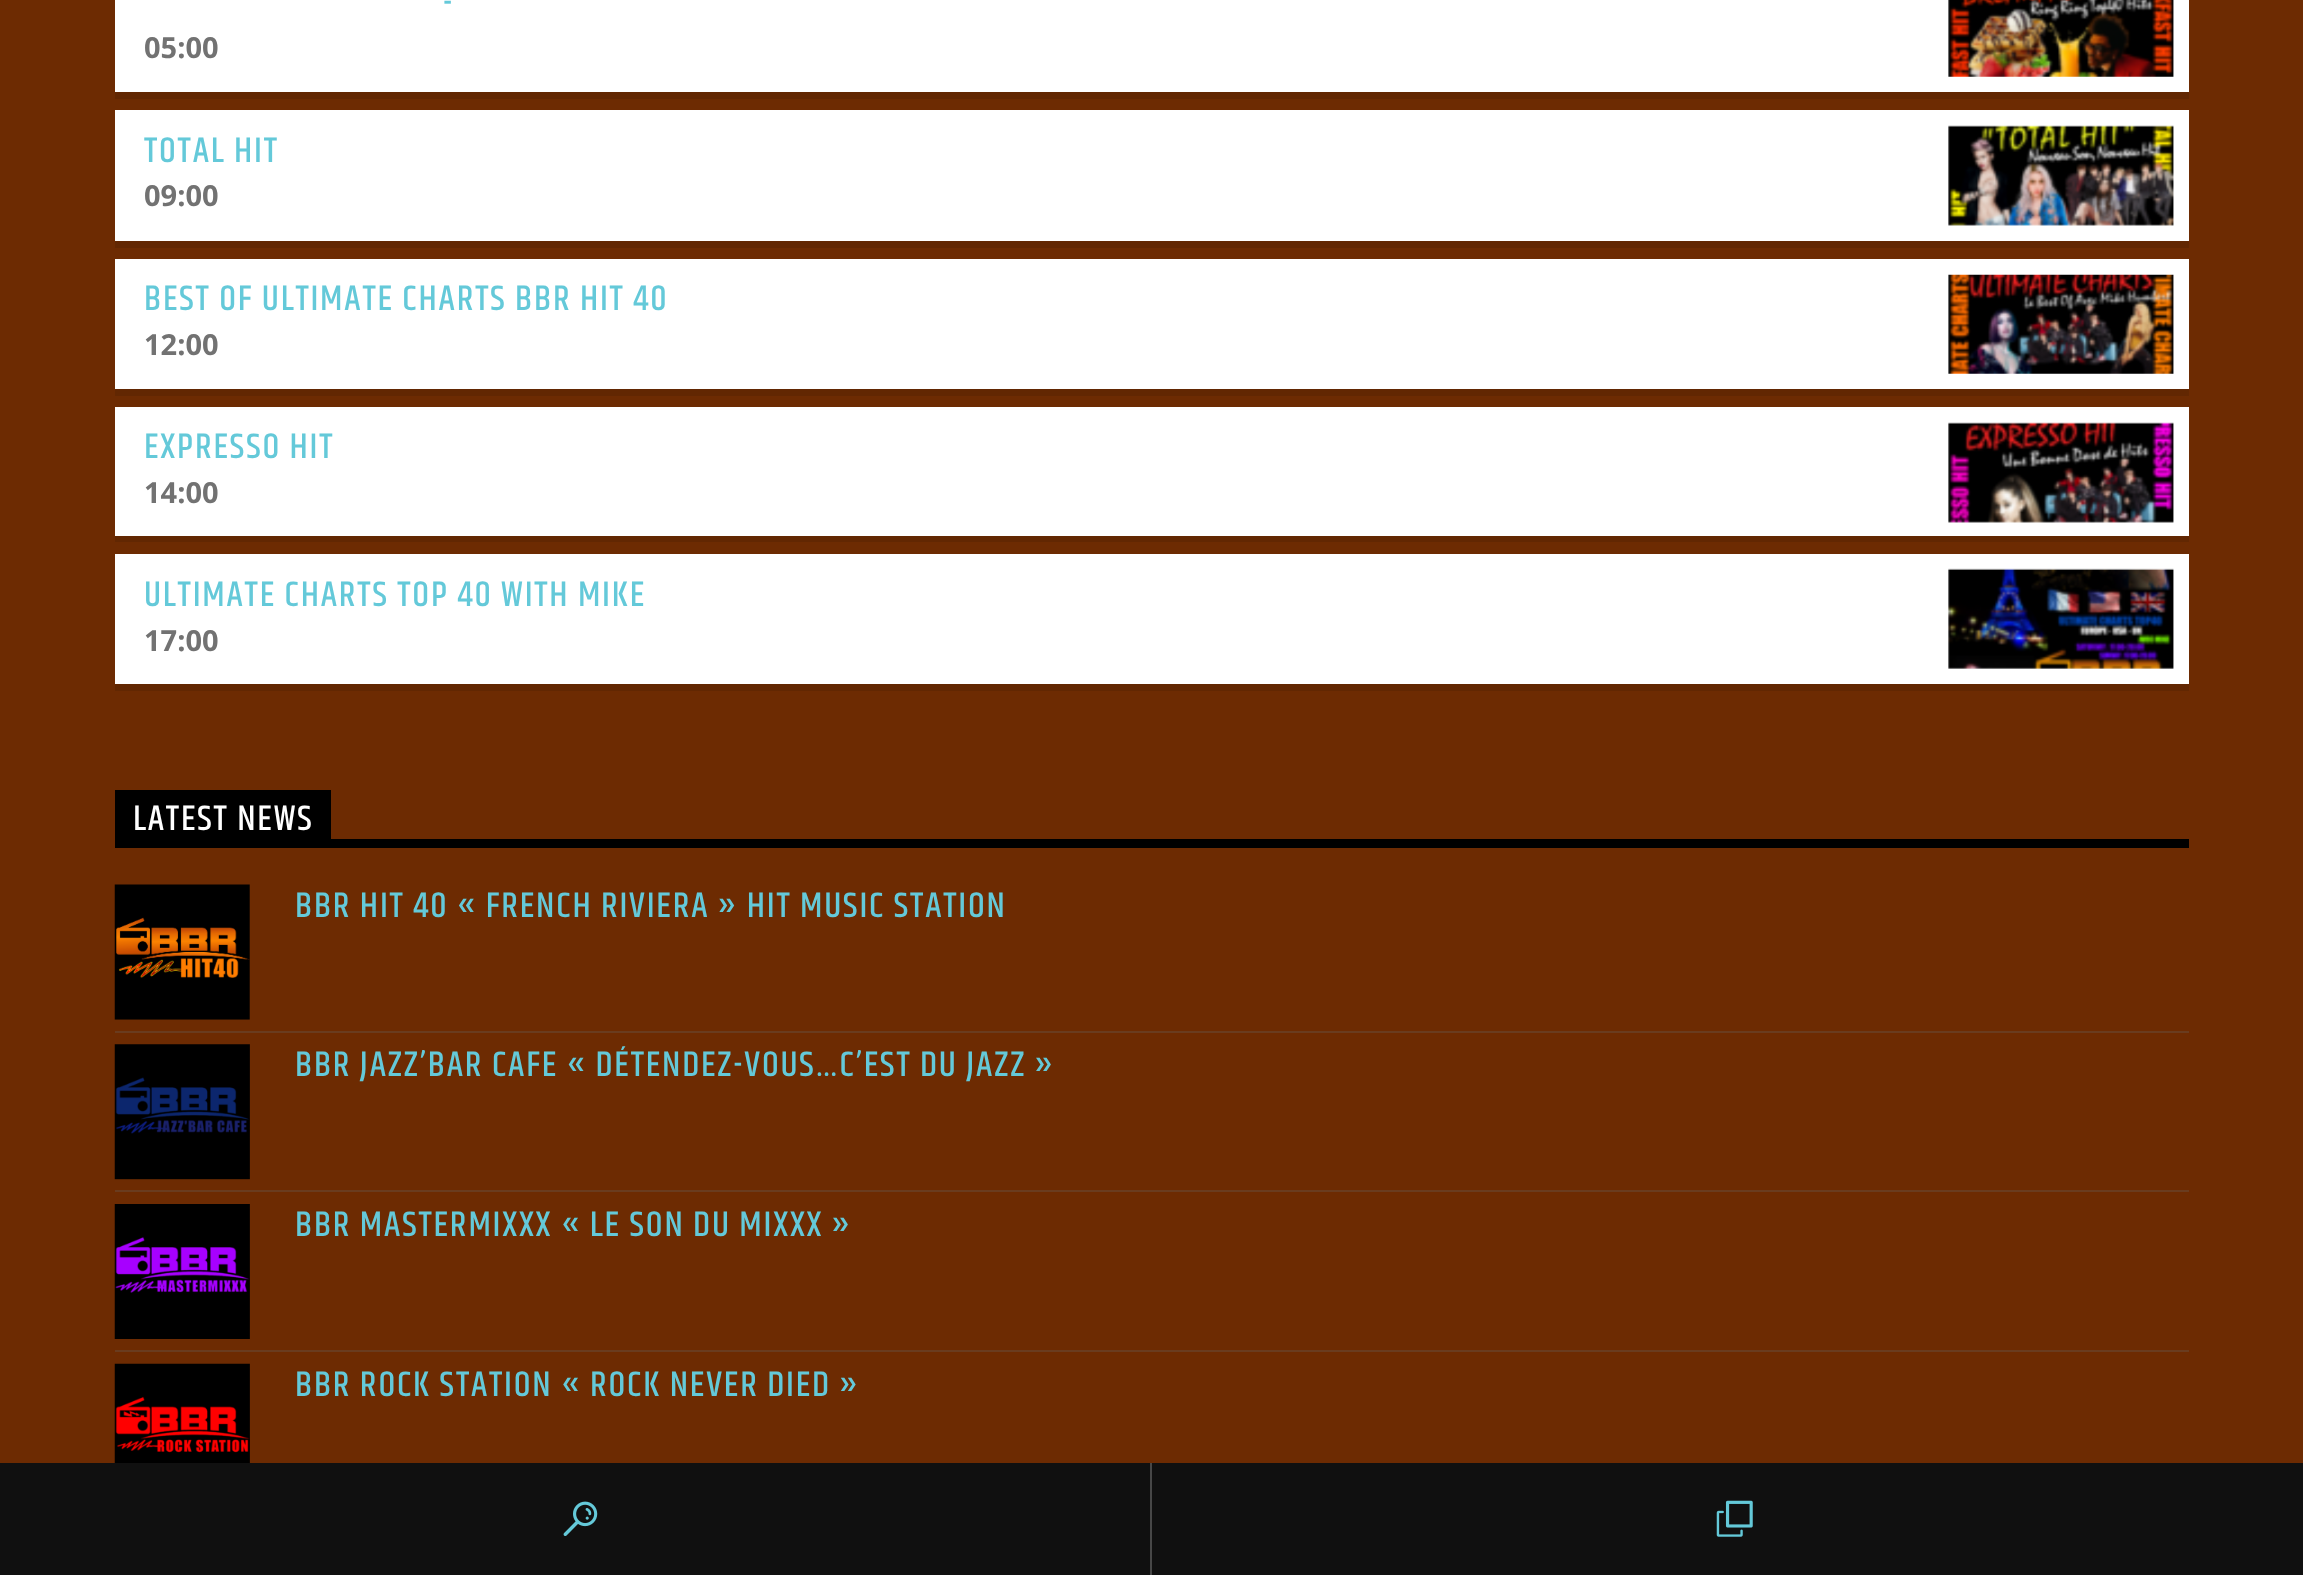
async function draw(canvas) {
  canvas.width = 2303
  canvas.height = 1575
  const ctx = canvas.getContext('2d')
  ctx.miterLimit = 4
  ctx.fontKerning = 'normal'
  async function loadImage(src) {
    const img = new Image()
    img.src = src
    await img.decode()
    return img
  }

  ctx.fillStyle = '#6d2b02'
  ctx.fillRect(0, 0, 2303, 1575)
  ctx.fillStyle = '#622702'
  ctx.fillRect(115, 92, 2074, 7)
  ctx.fillStyle = '#fff'
  ctx.fillRect(115, 0, 2074, 92)
  ctx.font = 'bold 29px Open Sans'
  ctx.fillStyle = '#727272'
  ctx.fillText('05:00', 144, 58)
  ctx.letterSpacing = '1.8px'
  ctx.font = '500 36px Khand'
  ctx.fillStyle = '#64c9d9'
  ctx.fillText('-', 443, 14)
  ctx.drawImage(await loadImage('image0.png'), 1948, 0, 226, 77)
  ctx.fillStyle = '#622702'
  ctx.fillRect(115, 241, 2074, 7)
  ctx.fillStyle = '#fff'
  ctx.fillRect(115, 110, 2074, 131)
  ctx.fillStyle = '#64c9d9'
  ctx.fillText('TOTAL HIT', 144, 162)
  ctx.drawImage(await loadImage('image1.png'), 1948, 125, 226, 101)
  ctx.letterSpacing = '0px'
  ctx.font = 'bold 29px Open Sans'
  ctx.fillStyle = '#727272'
  ctx.fillText('09:00', 144, 206)
  ctx.fillStyle = '#622702'
  ctx.fillRect(115, 389, 2074, 7)
  ctx.fillStyle = '#fff'
  ctx.fillRect(115, 259, 2074, 130)
  ctx.letterSpacing = '1.8px'
  ctx.font = '500 36px Khand'
  ctx.fillStyle = '#64c9d9'
  ctx.fillText('BEST OF ULTIMATE CHARTS BBR HIT 40', 144, 310)
  ctx.drawImage(await loadImage('image2.png'), 1948, 274, 226, 100)
  ctx.letterSpacing = '0px'
  ctx.font = 'bold 29px Open Sans'
  ctx.fillStyle = '#727272'
  ctx.fillText('12:00', 144, 355)
  ctx.fillStyle = '#622702'
  ctx.fillRect(115, 536, 2074, 6)
  ctx.fillStyle = '#fff'
  ctx.fillRect(115, 407, 2074, 129)
  ctx.letterSpacing = '1.8px'
  ctx.font = '500 36px Khand'
  ctx.fillStyle = '#64c9d9'
  ctx.fillText('EXPRESSO HIT', 144, 458)
  ctx.drawImage(await loadImage('image3.png'), 1948, 422, 226, 101)
  ctx.letterSpacing = '0px'
  ctx.font = 'bold 29px Open Sans'
  ctx.fillStyle = '#727272'
  ctx.fillText('14:00', 144, 503)
  ctx.fillStyle = '#622702'
  ctx.fillRect(115, 684, 2074, 7)
  ctx.fillStyle = '#fff'
  ctx.fillRect(115, 554, 2074, 130)
  ctx.letterSpacing = '1.8px'
  ctx.font = '500 36px Khand'
  ctx.fillStyle = '#64c9d9'
  ctx.fillText('ULTIMATE CHARTS TOP 40 WITH MIKE', 144, 606)
  ctx.drawImage(await loadImage('image4.png'), 1948, 568, 226, 101)
  ctx.letterSpacing = '0px'
  ctx.font = 'bold 29px Open Sans'
  ctx.fillStyle = '#727272'
  ctx.fillText('17:00', 144, 651)
  ctx.fillStyle = '#000'
  ctx.fillRect(331, 839, 1858, 9)
  ctx.fillRect(115, 790, 216, 58)
  ctx.letterSpacing = '1.8px'
  ctx.font = '500 36px Khand'
  ctx.fillStyle = '#fff'
  ctx.fillText('LATEST NEWS', 133, 830)
  ctx.fillStyle = '#6a3c1f'
  ctx.fillRect(115, 1031, 2074, 2)
  ctx.drawImage(await loadImage('image5.png'), 114, 884, 136, 136)
  ctx.fillStyle = '#64c9d9'
  ctx.fillText('BBR HIT 40 « FRENCH RIVIERA » HIT MUSIC STATION', 295, 917)
  ctx.fillStyle = '#6a3c1f'
  ctx.fillRect(115, 1190, 2074, 2)
  ctx.drawImage(await loadImage('image6.png'), 114, 1044, 136, 136)
  ctx.fillStyle = '#64c9d9'
  ctx.fillText('BBR JAZZ’BAR CAFE « DÉTENDEZ-VOUS…C’EST DU JAZZ »', 295, 1076)
  ctx.fillStyle = '#6a3c1f'
  ctx.fillRect(115, 1350, 2074, 2)
  ctx.drawImage(await loadImage('image7.png'), 114, 1204, 136, 135)
  ctx.fillStyle = '#64c9d9'
  ctx.fillText('BBR MASTERMIXXX « LE SON DU MIXXX »', 295, 1236)
  ctx.drawImage(await loadImage('image8.png'), 114, 1363, 136, 100)
  ctx.fillText('BBR ROCK STATION « ROCK NEVER DIED »', 295, 1396)
  ctx.fillStyle = '#101010'
  ctx.fillRect(0, 1463, 2303, 112)
  ctx.fillStyle = '#474747'
  ctx.fillRect(1150, 1463, 2, 112)
  ctx.drawImage(await loadImage('image9.png'), 563, 1501, 35, 35)
  ctx.drawImage(await loadImage('image10.png'), 1716, 1500, 37, 37)
}

draw(document.querySelector('canvas'))
